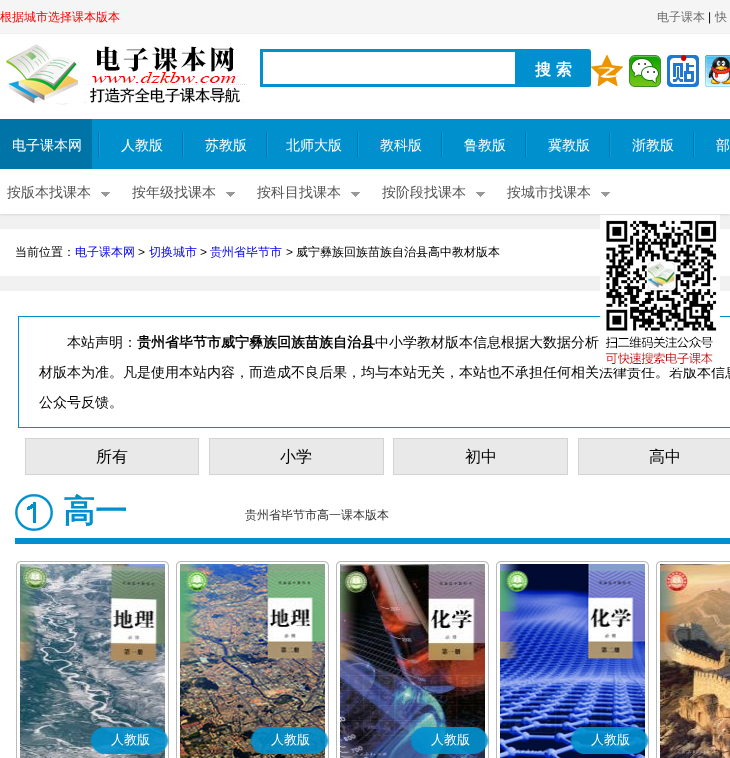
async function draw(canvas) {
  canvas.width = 730
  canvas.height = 758
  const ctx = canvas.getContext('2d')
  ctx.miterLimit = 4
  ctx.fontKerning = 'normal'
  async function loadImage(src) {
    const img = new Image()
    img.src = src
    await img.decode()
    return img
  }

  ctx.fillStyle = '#f1f1f1'
  ctx.fillRect(0, 0, 730, 758)
  ctx.fillStyle = '#f5f5f5'
  ctx.fillRect(0, 0, 730, 33)
  ctx.fillStyle = '#eee'
  ctx.fillRect(0, 33, 730, 1)
  ctx.font = '500 12px WenQuanYi Zen Hei'
  ctx.fillStyle = '#f00'
  ctx.fillText('根据城市选择课本版本', 0, 21)
  ctx.fillStyle = '#6c6c6c'
  ctx.fillText('电子课本', 657, 21)
  ctx.font = '12px Liberation Sans'
  ctx.fillStyle = '#000'
  ctx.fillText('|', 708, 21)
  ctx.font = '500 12px WenQuanYi Zen Hei'
  ctx.fillStyle = '#6c6c6c'
  ctx.fillText('快', 715, 21)
  ctx.fillStyle = '#fff'
  ctx.fillRect(0, 34, 730, 85)
  ctx.drawImage(await loadImage('image0.png'), 4, 44, 241, 61)
  ctx.fillStyle = '#0090ce'
  ctx.fillRect(260, 49, 255, 3)
  ctx.fillRect(260, 84, 255, 3)
  ctx.fillRect(260, 49, 3, 38)
  ctx.beginPath()
  ctx.roundRect(515, 49, 76, 38, [0, 3, 3, 0])
  ctx.fill()
  ctx.font = 'bold 16px WenQuanYi Zen Hei'
  ctx.fillStyle = '#fff'
  ctx.fillText('搜 索', 535, 75)
  ctx.drawImage(await loadImage('image1.png'), 591, 55, 32, 31)
  ctx.drawImage(await loadImage('image2.png'), 629, 55, 32, 32)
  ctx.drawImage(await loadImage('image3.png'), 667, 55, 32, 32)
  ctx.drawImage(await loadImage('image4.png'), 705, 55, 25, 32)
  ctx.fillStyle = '#0090ce'
  ctx.fillRect(92, 119, 638, 50)
  ctx.fillStyle = '#0000001a'
  ctx.filter = 'blur(1px)'
  ctx.beginPath()
  ctx.rect(0, 170, 730, 45)
  ctx.fill()
  ctx.filter = 'none'
  ctx.fillStyle = '#0074a6'
  ctx.fillRect(0, 119, 92, 50)
  ctx.font = '500 14px WenQuanYi Zen Hei'
  ctx.fillStyle = '#fff'
  ctx.fillText('电子课本网', 12, 150)
  ctx.fillStyle = '#0074a6'
  ctx.fillRect(98, 132, 1, 25)
  ctx.fillStyle = '#009ee2'
  ctx.fillRect(99, 132, 1, 25)
  ctx.fillStyle = '#fff'
  ctx.fillText('人教版', 121, 150)
  ctx.fillStyle = '#0074a6'
  ctx.fillRect(182, 132, 1, 25)
  ctx.fillStyle = '#009ee2'
  ctx.fillRect(183, 132, 1, 25)
  ctx.fillStyle = '#fff'
  ctx.fillText('苏教版', 205, 150)
  ctx.fillStyle = '#0074a6'
  ctx.fillRect(266, 132, 1, 25)
  ctx.fillStyle = '#009ee2'
  ctx.fillRect(267, 132, 1, 25)
  ctx.fillStyle = '#fff'
  ctx.fillText('北师大版', 286, 150)
  ctx.fillStyle = '#0074a6'
  ctx.fillRect(357, 132, 1, 25)
  ctx.fillStyle = '#009ee2'
  ctx.fillRect(358, 132, 1, 25)
  ctx.fillStyle = '#fff'
  ctx.fillText('教科版', 380, 150)
  ctx.fillStyle = '#0074a6'
  ctx.fillRect(441, 132, 1, 25)
  ctx.fillStyle = '#009ee2'
  ctx.fillRect(442, 132, 1, 25)
  ctx.fillStyle = '#fff'
  ctx.fillText('鲁教版', 464, 150)
  ctx.fillStyle = '#0074a6'
  ctx.fillRect(525, 132, 1, 25)
  ctx.fillStyle = '#009ee2'
  ctx.fillRect(526, 132, 1, 25)
  ctx.fillStyle = '#fff'
  ctx.fillText('冀教版', 548, 150)
  ctx.fillStyle = '#0074a6'
  ctx.fillRect(609, 132, 1, 25)
  ctx.fillStyle = '#009ee2'
  ctx.fillRect(610, 132, 1, 25)
  ctx.fillStyle = '#fff'
  ctx.fillText('浙教版', 632, 150)
  ctx.fillStyle = '#0074a6'
  ctx.fillRect(693, 132, 1, 25)
  ctx.fillStyle = '#009ee2'
  ctx.fillRect(694, 132, 1, 25)
  ctx.fillStyle = '#fff'
  ctx.fillText('部', 716, 150)
  ctx.fillRect(0, 169, 730, 45)
  ctx.drawImage(await loadImage('image5.png'), 101, 192, 9, 5)
  ctx.fillStyle = '#535353'
  ctx.fillText('按版本找课本', 7, 197)
  ctx.drawImage(await loadImage('image5.png'), 226, 192, 9, 5)
  ctx.fillText('按年级找课本', 132, 197)
  ctx.drawImage(await loadImage('image5.png'), 351, 192, 9, 5)
  ctx.fillText('按科目找课本', 257, 197)
  ctx.drawImage(await loadImage('image5.png'), 476, 192, 9, 5)
  ctx.fillText('按阶段找课本', 382, 197)
  ctx.drawImage(await loadImage('image5.png'), 601, 192, 9, 5)
  ctx.fillText('按城市找课本', 507, 197)
  ctx.fillStyle = '#fff'
  ctx.fillRect(0, 229, 730, 47)
  ctx.font = '500 12px WenQuanYi Zen Hei'
  ctx.fillStyle = '#000'
  ctx.fillText('当前位置：', 15, 256)
  ctx.fillStyle = '#00e'
  ctx.fillText('电子课本网', 75, 256)
  ctx.font = '12px Liberation Sans'
  ctx.fillStyle = '#000'
  ctx.fillText('>', 138, 256)
  ctx.font = '500 12px WenQuanYi Zen Hei'
  ctx.fillStyle = '#00e'
  ctx.fillText('切换城市', 149, 256)
  ctx.font = '12px Liberation Sans'
  ctx.fillStyle = '#000'
  ctx.fillText('>', 200, 256)
  ctx.font = '500 12px WenQuanYi Zen Hei'
  ctx.fillStyle = '#00e'
  ctx.fillText('贵州省毕节市', 210, 256)
  ctx.font = '12px Liberation Sans'
  ctx.fillStyle = '#000'
  ctx.fillText('>', 286, 256)
  ctx.font = '500 12px WenQuanYi Zen Hei'
  ctx.fillText('威宁彝族回族苗族自治县高中教材版本', 296, 256)
  ctx.fillStyle = '#fff'
  ctx.fillRect(0, 291, 730, 467)
  ctx.strokeStyle = '#0090ce'
  ctx.strokeRect(18.5, 316.5, 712, 111)
  ctx.font = '500 14px WenQuanYi Zen Hei'
  ctx.fillStyle = '#000'
  ctx.fillText('材版本为准。凡是使用本站内容，而造成不良后果，均与本站无关，本站也不承担任何相关法律责任。若版本信息', 39, 377)
  ctx.drawImage(await loadImage('image6.png'), 600, 215, 120, 153)
  ctx.fillText('本站声明：', 67, 347)
  ctx.font = 'bold 14px WenQuanYi Zen Hei'
  ctx.fillText('贵州省毕节市威宁彝族回族苗族自治县', 137, 347)
  ctx.font = '500 14px WenQuanYi Zen Hei'
  ctx.fillText('中小学教材版本信息根据大数据分析', 375, 347)
  ctx.fillText('公众号反馈。', 39, 407)
  ctx.strokeStyle = '#d3d3d3'
  ctx.strokeRect(25.5, 438.5, 173, 36)
  ctx.fillStyle = '#eae9e9'
  ctx.fillRect(26, 439, 172, 35)
  ctx.font = '500 16px WenQuanYi Zen Hei'
  ctx.fillStyle = '#000'
  ctx.fillText('所有', 96, 462)
  ctx.strokeRect(209.5, 438.5, 174, 36)
  ctx.fillStyle = '#eae9e9'
  ctx.fillRect(210, 439, 173, 35)
  ctx.fillStyle = '#000'
  ctx.fillText('小学', 280, 462)
  ctx.strokeRect(393.5, 438.5, 174, 36)
  ctx.fillStyle = '#eae9e9'
  ctx.fillRect(394, 439, 173, 35)
  ctx.fillStyle = '#000'
  ctx.fillText('初中', 465, 462)
  ctx.strokeRect(578.5, 438.5, 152, 36)
  ctx.fillStyle = '#eae9e9'
  ctx.fillRect(579, 439, 151, 35)
  ctx.fillStyle = '#000'
  ctx.fillText('高中', 649, 462)
  ctx.fillStyle = '#0090ce'
  ctx.fillRect(15, 538, 715, 6)
  ctx.drawImage(await loadImage('image7.png'), 15, 494, 38, 37)
  ctx.font = 'bold 32px WenQuanYi Zen Hei'
  ctx.fillStyle = '#0090cc'
  ctx.fillText('高一', 63, 522)
  ctx.font = '500 12px WenQuanYi Zen Hei'
  ctx.fillStyle = '#333'
  ctx.fillText('贵州省毕节市高一课本版本', 245, 519)
  ctx.drawImage(await loadImage('image8.png'), 16, 561, 153, 197)
  ctx.drawImage(await loadImage('image9.png'), 90, 727, 79, 27)
  ctx.font = '500 13px WenQuanYi Zen Hei'
  ctx.fillStyle = '#fff'
  ctx.fillText('人教版', 111, 744)
  ctx.drawImage(await loadImage('image10.png'), 176, 561, 153, 197)
  ctx.drawImage(await loadImage('image11.png'), 250, 727, 79, 27)
  ctx.fillText('人教版', 271, 744)
  ctx.drawImage(await loadImage('image12.png'), 336, 561, 153, 197)
  ctx.drawImage(await loadImage('image13.png'), 410, 727, 79, 27)
  ctx.fillText('人教版', 431, 744)
  ctx.drawImage(await loadImage('image14.png'), 496, 561, 153, 197)
  ctx.drawImage(await loadImage('image15.png'), 570, 727, 79, 27)
  ctx.fillText('人教版', 591, 744)
  ctx.drawImage(await loadImage('image16.png'), 656, 561, 74, 197)
}

draw(document.querySelector('canvas'))
